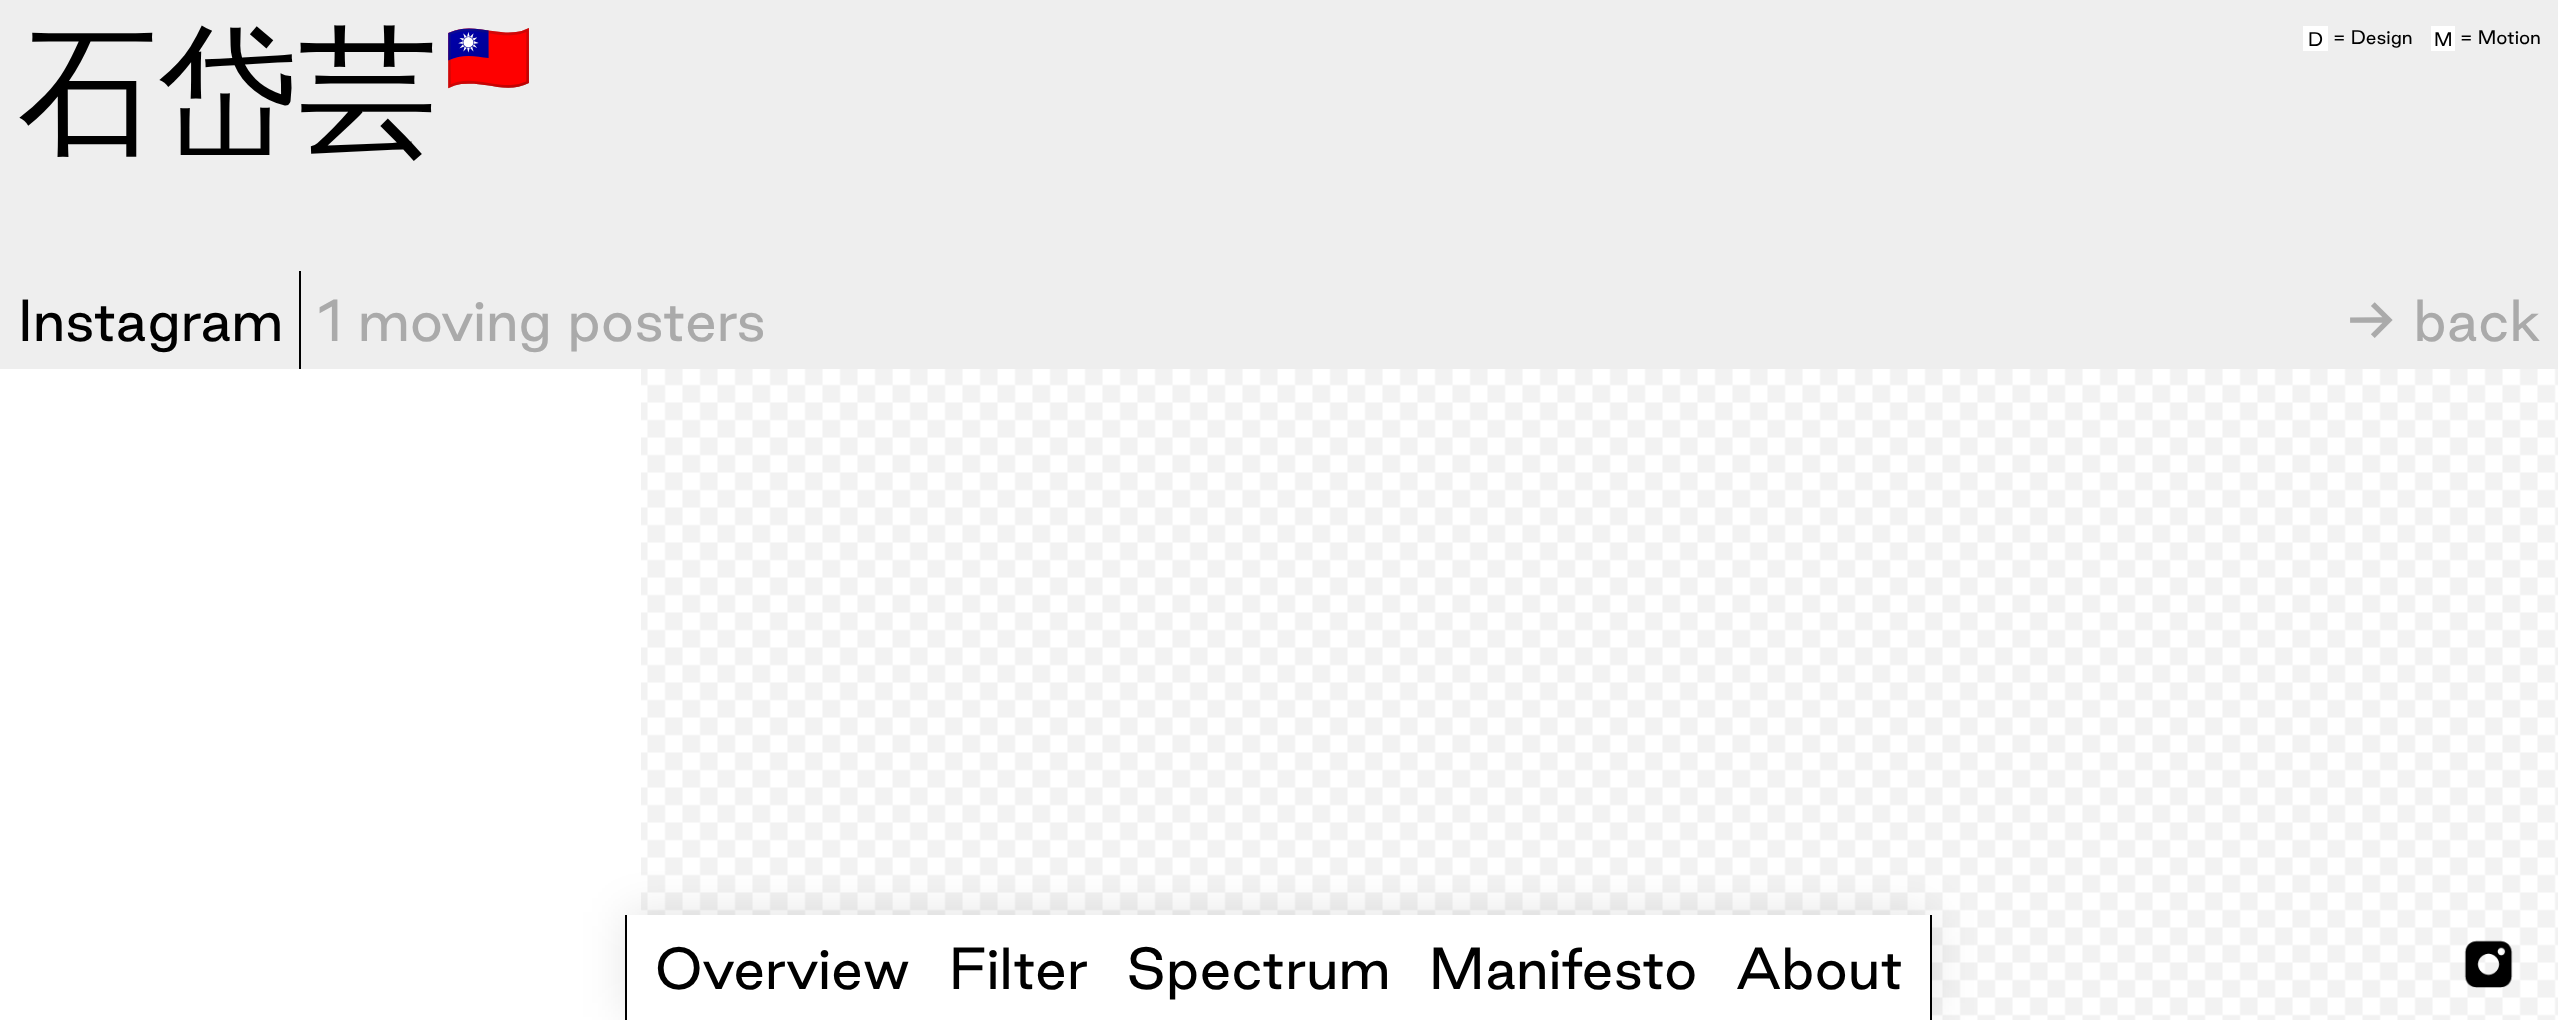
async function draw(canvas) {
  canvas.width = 2558
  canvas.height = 1020
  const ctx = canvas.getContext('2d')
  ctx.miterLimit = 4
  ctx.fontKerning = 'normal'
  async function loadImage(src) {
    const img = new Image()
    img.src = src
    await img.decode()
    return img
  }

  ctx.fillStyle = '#fff'
  ctx.fillRect(0, 0, 2558, 1020)
  ctx.drawImage(await loadImage('image0.png'), 641, 369, 1917, 651)
  ctx.fillStyle = '#eee'
  ctx.fillRect(0, 0, 2558, 369)
  ctx.font = '500 140px WenQuanYi Zen Hei'
  ctx.fillStyle = '#000'
  ctx.fillText('石岱芸', 18, 140)
  ctx.font = '70px Noto Color Emoji'
  ctx.fillText('🇹🇼', 445, 82)
  ctx.font = '52.5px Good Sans'
  ctx.fillText('Instagram', 18, 341)
  ctx.fillRect(299, 271, 2, 98)
  ctx.fillStyle = '#aaa'
  ctx.fillText('1 moving posters', 318, 341)
  ctx.fillText('→ back', 2345, 341)
  ctx.fillStyle = '#fff'
  ctx.fillRect(2303, 26, 25, 25)
  ctx.font = '17.5px Good Sans'
  ctx.fillStyle = '#000'
  ctx.fillText('D', 2308, 46)
  ctx.fillText('= Design', 2333, 44)
  ctx.fillStyle = '#fff'
  ctx.fillRect(2431, 26, 24, 25)
  ctx.fillStyle = '#000'
  ctx.fillText('M', 2434, 46)
  ctx.fillText('= Motion', 2460, 44)
  ctx.fillStyle = '#0000001a'
  ctx.filter = 'blur(22px)'
  ctx.beginPath()
  ctx.rect(625, 912, 1307, 105)
  ctx.fill()
  ctx.filter = 'none'
  ctx.fillStyle = '#fff'
  ctx.fillRect(627, 915, 1303, 105)
  ctx.fillStyle = '#000'
  ctx.fillRect(1930, 915, 2, 105)
  ctx.fillRect(625, 915, 2, 105)
  ctx.font = '52.5px Good Sans'
  ctx.fillText('Overview', 655, 989)
  ctx.fillText('Filter', 949, 989)
  ctx.fillText('Spectrum', 1126, 989)
  ctx.fillText('Manifesto', 1429, 989)
  ctx.fillText('About', 1736, 989)
  ctx.drawImage(await loadImage('image1.png'), 2464, 940, 49, 48)
}

draw(document.querySelector('canvas'))
